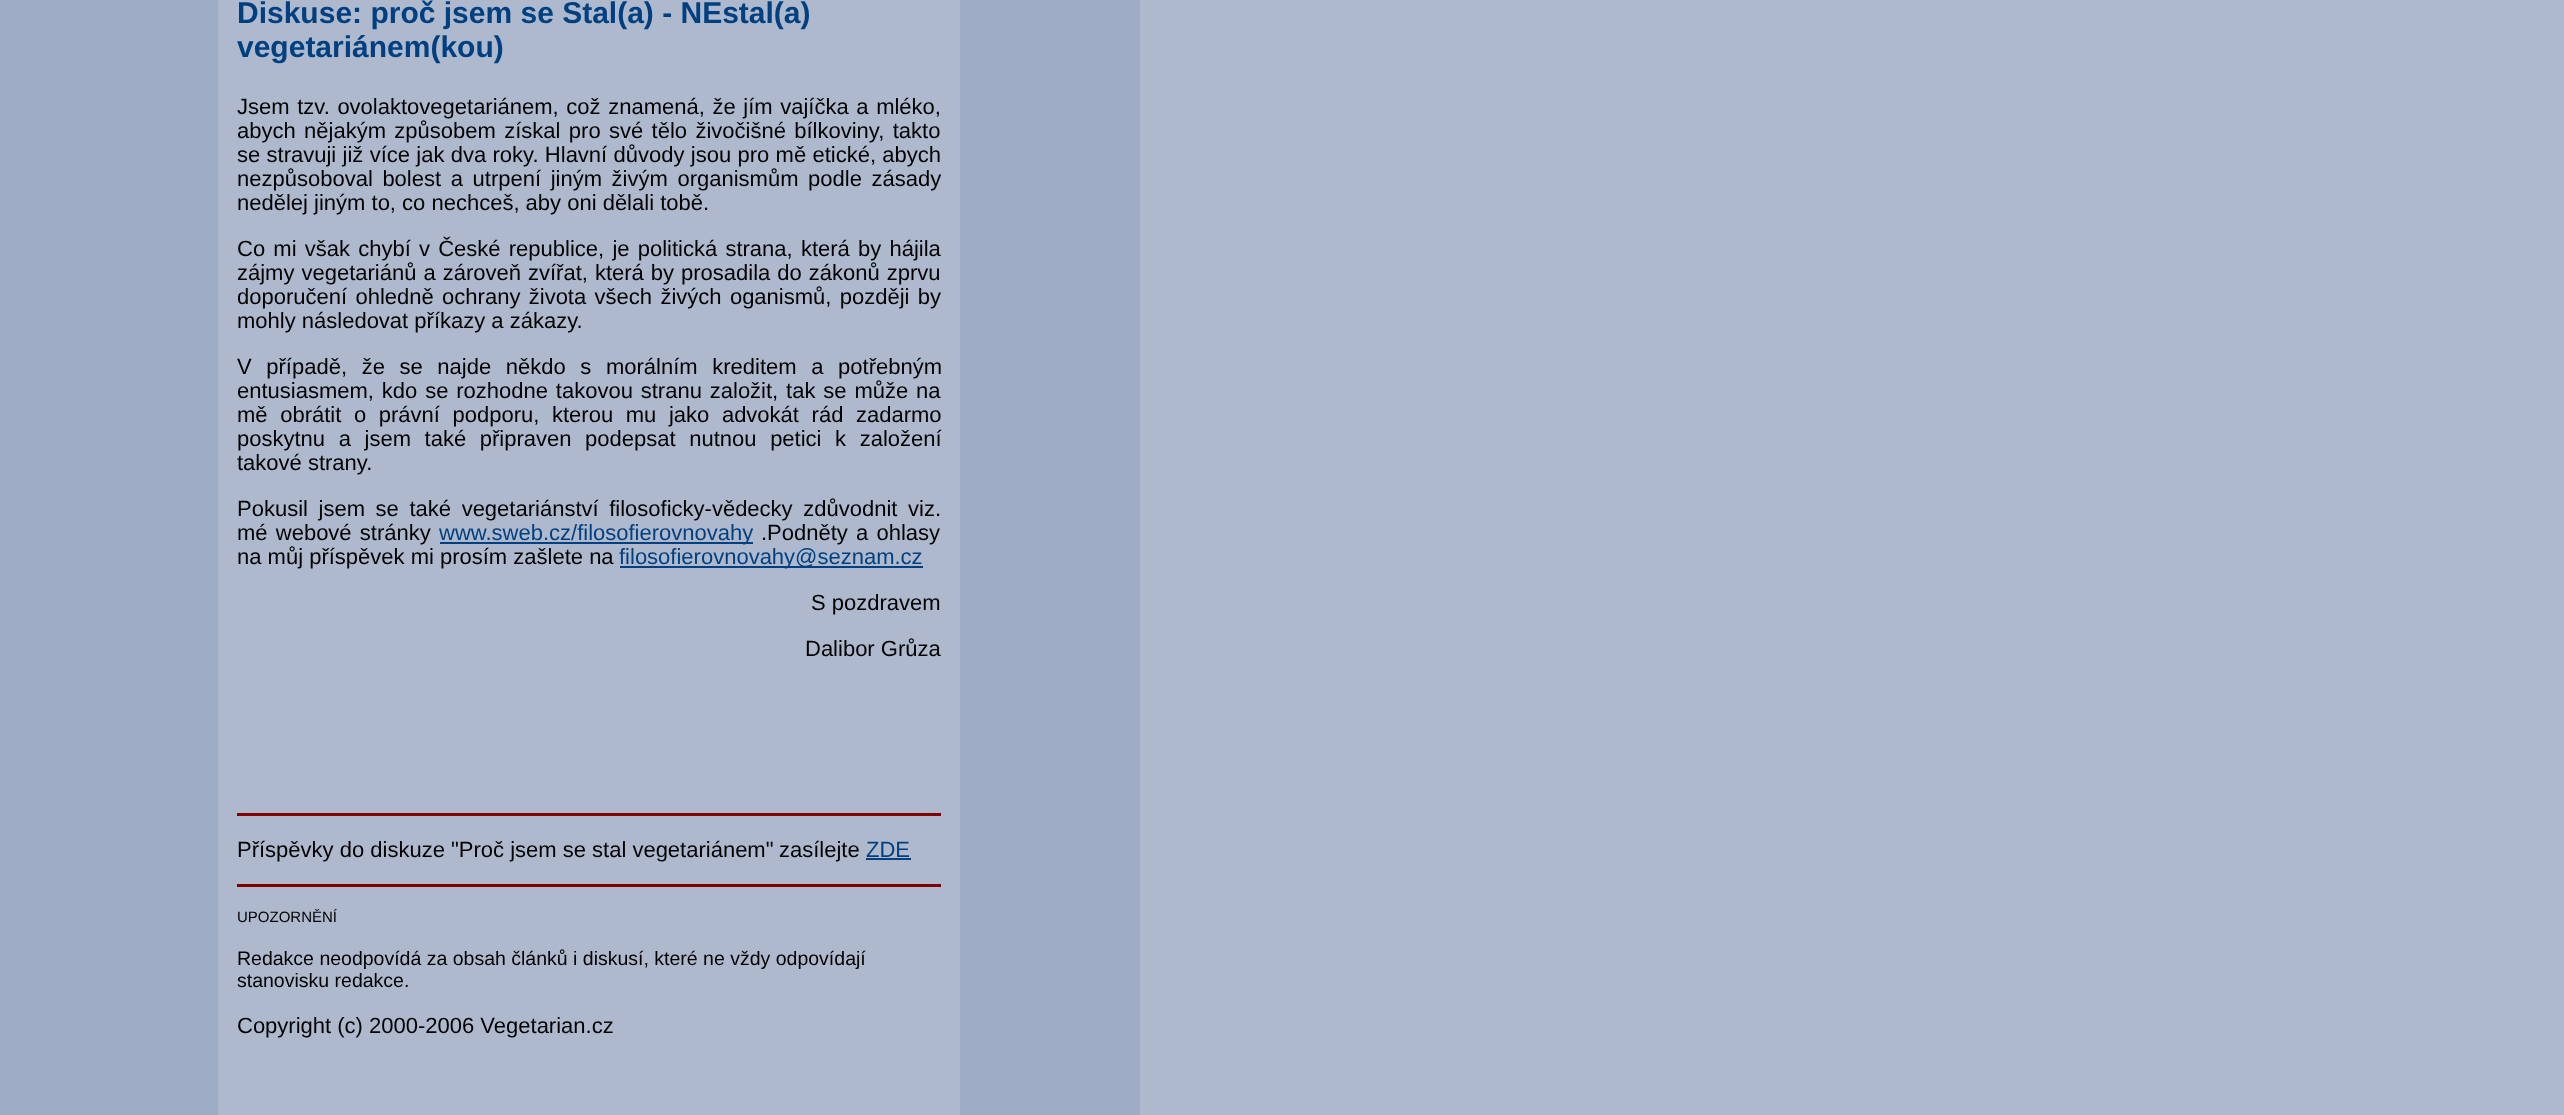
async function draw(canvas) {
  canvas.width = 2564
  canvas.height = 1115
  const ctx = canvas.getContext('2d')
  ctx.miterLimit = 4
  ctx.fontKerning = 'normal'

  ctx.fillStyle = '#aeb9ce'
  ctx.fillRect(0, 0, 2564, 1115)
  ctx.fillStyle = '#9facc5'
  ctx.fillRect(0, 0, 218, 1115)
  ctx.font = 'bold 30px Liberation Sans'
  ctx.fillStyle = '#004080'
  ctx.fillText('Diskuse: proč jsem se Stal(a) - NEstal(a)', 237, 23)
  ctx.fillText('vegetariánem(kou)', 237, 57)
  ctx.wordSpacing = '1.5px'
  ctx.font = '22px Liberation Sans'
  ctx.fillStyle = '#000'
  ctx.fillText('Jsem tzv. ovolaktovegetariánem, což znamená, že jím vajíčka a mléko,', 237, 114)
  ctx.wordSpacing = '2.25px'
  ctx.fillText('abych nějakým způsobem získal pro své tělo živočišné bílkoviny, takto', 237, 138)
  ctx.wordSpacing = '0.2px'
  ctx.fillText('se stravuji již více jak dva roky. Hlavní důvody jsou pro mě etické, abych', 237, 162)
  ctx.wordSpacing = '3.5px'
  ctx.fillText('nezpůsoboval bolest a utrpení jiným živým organismům podle zásady', 237, 186)
  ctx.wordSpacing = '0px'
  ctx.fillText('nedělej jiným to, co nechceš, aby oni dělali tobě.', 237, 210)
  ctx.wordSpacing = '2.1px'
  ctx.fillText('Co mi však chybí v České republice, je politická strana, která by hájila', 237, 256)
  ctx.wordSpacing = '0.9px'
  ctx.fillText('zájmy vegetariánů a zároveň zvířat, která by prosadila do zákonů zprvu', 237, 280)
  ctx.wordSpacing = '2.25px'
  ctx.fillText('doporučení ohledně ochrany života všech živých oganismů, později by', 237, 304)
  ctx.wordSpacing = '0px'
  ctx.fillText('mohly následovat příkazy a zákazy.', 237, 328)
  ctx.wordSpacing = '8.5px'
  ctx.fillText('V případě, že se najde někdo s morálním kreditem a potřebným', 237, 374)
  ctx.wordSpacing = '1.75px'
  ctx.fillText('entusiasmem, kdo se rozhodne takovou stranu založit, tak se může na', 237, 398)
  ctx.wordSpacing = '6.5px'
  ctx.fillText('mě obrátit o právní podporu, kterou mu jako advokát rád zadarmo', 237, 422)
  ctx.wordSpacing = '7.5px'
  ctx.fillText('poskytnu a jsem také připraven podepsat nutnou petici k založení', 237, 446)
  ctx.wordSpacing = '0px'
  ctx.fillText('takové strany.', 237, 470)
  ctx.wordSpacing = '4.5px'
  ctx.fillText('Pokusil jsem se také vegetariánství filosoficky-vědecky zdůvodnit viz.', 237, 516)
  ctx.wordSpacing = '2.1px'
  ctx.fillText('mé webové stránky', 237, 540)
  ctx.fillStyle = '#004080'
  ctx.fillRect(440, 542, 313, 2)
  ctx.wordSpacing = '0px'
  ctx.fillText('www.sweb.cz/filosofierovnovahy', 439, 540)
  ctx.wordSpacing = '2.1px'
  ctx.fillStyle = '#000'
  ctx.fillText('.Podněty a ohlasy', 761, 540)
  ctx.wordSpacing = '0px'
  ctx.fillText('na můj příspěvek mi prosím zašlete na', 237, 564)
  ctx.fillStyle = '#004080'
  ctx.fillRect(620, 566, 303, 2)
  ctx.fillText('filosofierovnovahy@seznam.cz', 619, 564)
  ctx.fillStyle = '#000'
  ctx.fillText('S pozdravem', 811, 610)
  ctx.fillText('Dalibor Grůza', 805, 656)
  ctx.fillStyle = '#800000'
  ctx.fillRect(237, 813, 704, 3)
  ctx.fillStyle = '#000'
  ctx.fillText('Příspěvky do diskuze "Proč jsem se stal vegetariánem"', 237, 857)
  ctx.fillText('zasílejte', 779, 857)
  ctx.fillStyle = '#004080'
  ctx.fillText('ZDE', 866, 857)
  ctx.fillRect(866, 858, 45, 2)
  ctx.fillStyle = '#800000'
  ctx.fillRect(237, 884, 704, 3)
  ctx.font = '15px Liberation Sans'
  ctx.fillStyle = '#000'
  ctx.fillText('UPOZORNĚNÍ', 237, 922)
  ctx.font = '19.5px Liberation Sans'
  ctx.fillText('Redakce neodpovídá za obsah článků i diskusí, které ne vždy odpovídají', 237, 965)
  ctx.fillText('stanovisku redakce.', 237, 987)
  ctx.font = '22px Liberation Sans'
  ctx.fillText('Copyright (c) 2000-2006 Vegetarian.cz', 237, 1033)
  ctx.fillStyle = '#9facc5'
  ctx.fillRect(960, 0, 180, 1115)
}

draw(document.querySelector('canvas'))
